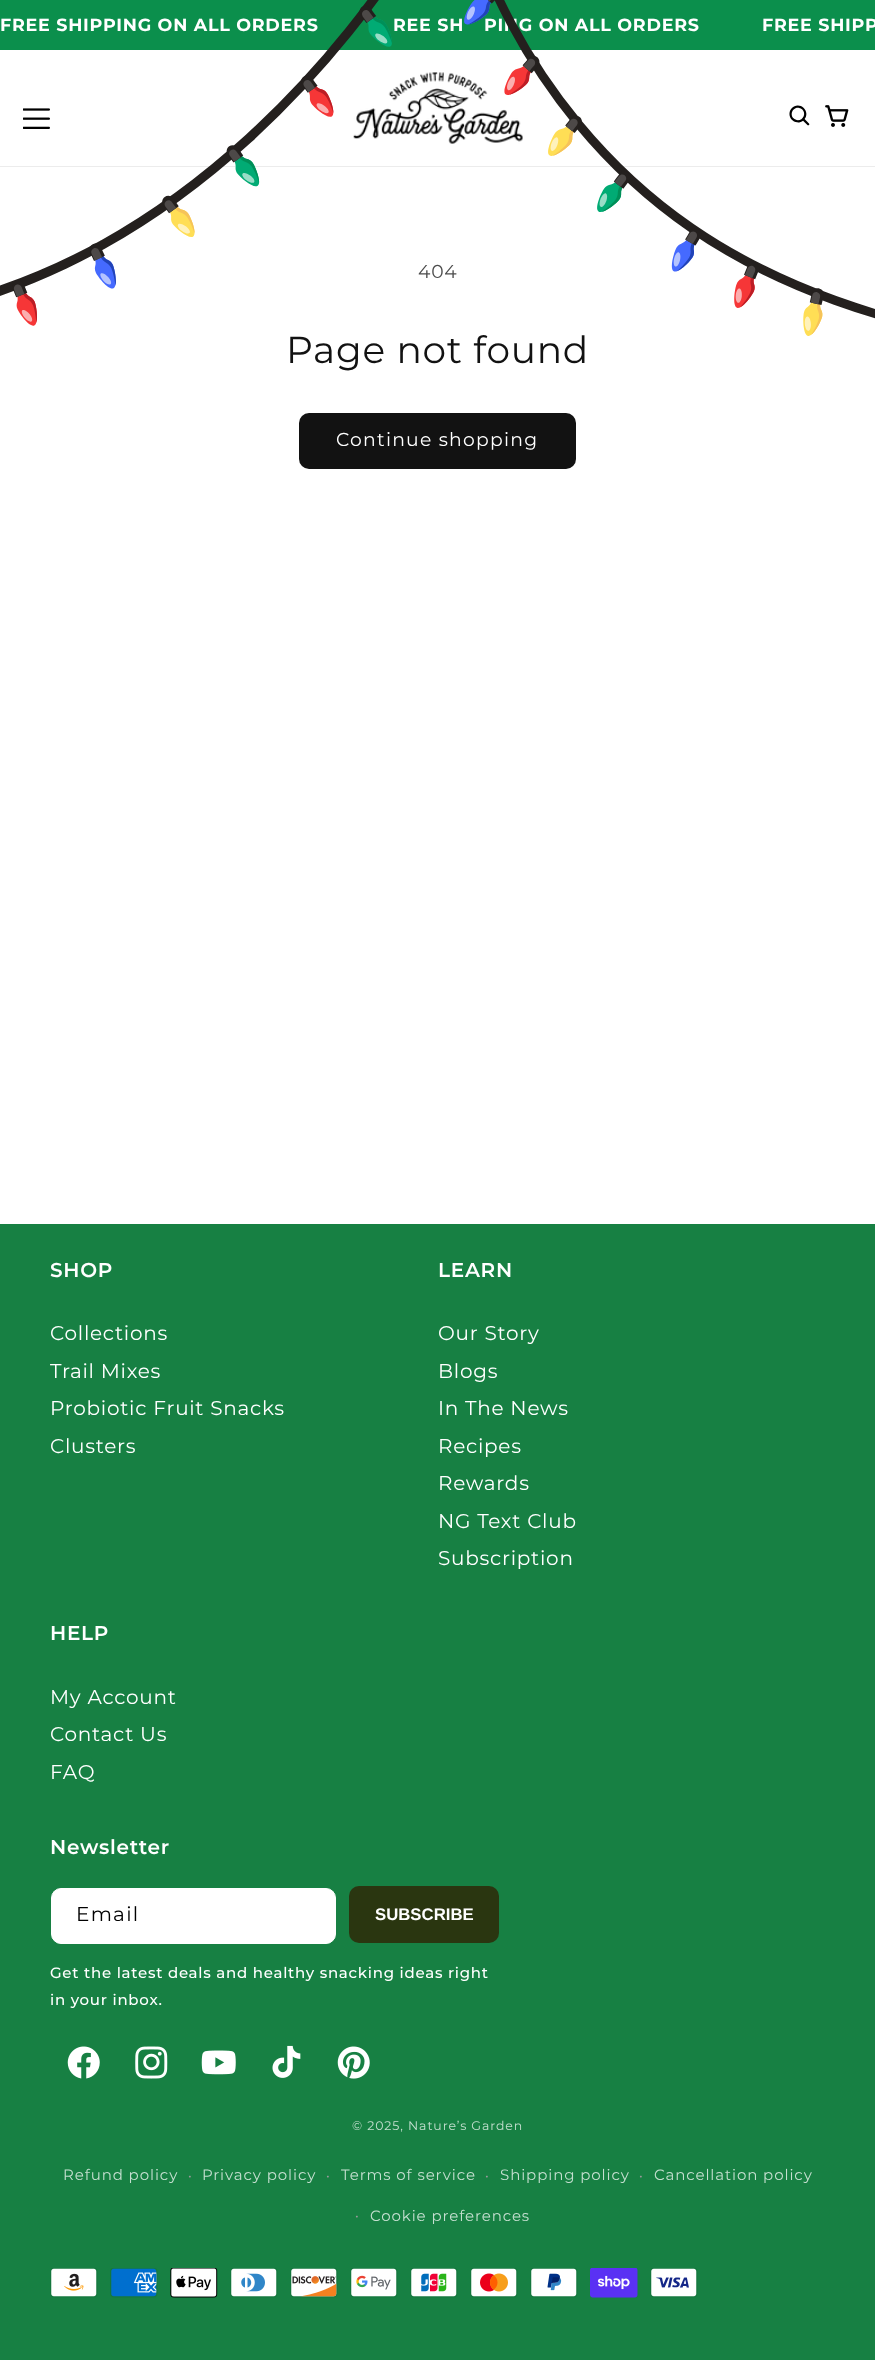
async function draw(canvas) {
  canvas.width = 875
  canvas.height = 2360
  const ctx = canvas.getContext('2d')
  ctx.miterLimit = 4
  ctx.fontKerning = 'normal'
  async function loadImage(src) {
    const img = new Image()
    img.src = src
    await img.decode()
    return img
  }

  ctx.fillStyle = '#fff'
  ctx.fillRect(0, 0, 875, 2360)
  ctx.fillStyle = '#ececec'
  ctx.fillRect(0, 166, 875, 1)
  ctx.drawImage(await loadImage('image1.png'), 23, 108, 27, 21)
  ctx.drawImage(await loadImage('image2.png'), 353, 72, 170, 72)
  ctx.drawImage(await loadImage('image3.png'), 789, 105, 21, 21)
  ctx.drawImage(await loadImage('image4.png'), 825, 105, 24, 22)
  ctx.fillStyle = '#0b8f4c'
  ctx.fillRect(0, 0, 875, 50)
  ctx.letterSpacing = '0.75px'
  ctx.font = 'bold 17.5px Montserrat'
  ctx.fillStyle = '#fff'
  ctx.fillText('FREE SHIPPING ON ALL ORDERS', 0, 31)
  ctx.fillText('REE SH', 393, 31)
  ctx.fillText('PING ON ALL ORDERS', 484, 31)
  ctx.fillText('FREE SHIPP', 762, 31)
  ctx.font = '18.75px Montserrat'
  ctx.fillStyle = '#4d4d4d'
  ctx.fillText('404', 418, 278)
  ctx.font = '37.5px Montserrat'
  ctx.fillStyle = '#121212'
  ctx.fillText('Page not found', 286, 363)
  ctx.drawImage(await loadImage('image0.png'), 0, 0, 875, 336)
  ctx.beginPath()
  ctx.roundRect(299, 413, 277, 56, 10)
  ctx.fill()
  ctx.letterSpacing = '1.25px'
  ctx.font = '18.75px Montserrat'
  ctx.fillStyle = '#fff'
  ctx.fillText('Continue shopping', 336, 446)
  ctx.fillStyle = '#178043'
  ctx.fillRect(0, 1224, 875, 1136)
  ctx.letterSpacing = '0.75px'
  ctx.font = '600 20px Montserrat'
  ctx.fillStyle = '#fff'
  ctx.fillText('SHOP', 50, 1277)
  ctx.font = '20px Montserrat'
  ctx.fillText('Collections', 50, 1340)
  ctx.fillText('Trail Mixes', 50, 1378)
  ctx.fillText('Probiotic Fruit Snacks', 50, 1415)
  ctx.fillText('Clusters', 50, 1453)
  ctx.font = '600 20px Montserrat'
  ctx.fillText('LEARN', 438, 1277)
  ctx.font = '20px Montserrat'
  ctx.fillText('Our Story', 438, 1340)
  ctx.fillText('Blogs', 438, 1378)
  ctx.fillText('In The News', 438, 1415)
  ctx.fillText('Recipes', 438, 1453)
  ctx.fillText('Rewards', 438, 1490)
  ctx.fillText('NG Text Club', 438, 1528)
  ctx.fillText('Subscription', 438, 1565)
  ctx.font = '600 20px Montserrat'
  ctx.fillText('HELP', 50, 1640)
  ctx.font = '20px Montserrat'
  ctx.fillText('My Account', 50, 1704)
  ctx.fillText('Contact Us', 50, 1741)
  ctx.fillText('FAQ', 50, 1779)
  ctx.font = '600 20px Montserrat'
  ctx.fillText('Newsletter', 50, 1854)
  ctx.beginPath()
  ctx.roundRect(51.5, 1888.5, 284, 55, 9.5)
  ctx.fill()
  ctx.strokeStyle = '#fff'
  ctx.stroke()
  ctx.letterSpacing = '1.25px'
  ctx.font = '20px Montserrat'
  ctx.fillStyle = '#000'
  ctx.fillText('Email', 76, 1921)
  ctx.fillStyle = '#2a3610'
  ctx.beginPath()
  ctx.roundRect(349, 1886, 150, 57, 10)
  ctx.fill()
  ctx.letterSpacing = '0px'
  ctx.font = 'bold 16.75px Liberation Sans'
  ctx.fillStyle = '#fff'
  ctx.fillText('SUBSCRIBE', 375, 1920)
  ctx.letterSpacing = '0.75px'
  ctx.font = '500 15px Montserrat'
  ctx.fillText('Get the latest deals and healthy snacking ideas right', 50, 1978)
  ctx.fillText('in your inbox.', 50, 2005)
  ctx.drawImage(await loadImage('image5.png'), 67, 2046, 33, 33)
  ctx.drawImage(await loadImage('image6.png'), 135, 2046, 33, 33)
  ctx.drawImage(await loadImage('image7.png'), 201, 2050, 35, 25)
  ctx.drawImage(await loadImage('image8.png'), 272, 2045, 29, 33)
  ctx.drawImage(await loadImage('image9.png'), 337, 2046, 33, 33)
  ctx.letterSpacing = '0.9px'
  ctx.font = '12.5px Montserrat'
  ctx.fillStyle = '#c5dfd0'
  ctx.fillText('© 2025, Nature’s Garden', 352, 2130)
  ctx.font = '15px Montserrat'
  ctx.fillText('Refund policy', 63, 2180)
  ctx.font = '12.5px Montserrat'
  ctx.fillStyle = '#999'
  ctx.fillText('•', 188, 2180)
  ctx.font = '15px Montserrat'
  ctx.fillStyle = '#c5dfd0'
  ctx.fillText('Privacy policy', 202, 2180)
  ctx.font = '12.5px Montserrat'
  ctx.fillStyle = '#999'
  ctx.fillText('•', 326, 2180)
  ctx.font = '15px Montserrat'
  ctx.fillStyle = '#c5dfd0'
  ctx.fillText('Terms of service', 341, 2180)
  ctx.font = '12.5px Montserrat'
  ctx.fillStyle = '#999'
  ctx.fillText('•', 485, 2180)
  ctx.font = '15px Montserrat'
  ctx.fillStyle = '#c5dfd0'
  ctx.fillText('Shipping policy', 500, 2180)
  ctx.font = '12.5px Montserrat'
  ctx.fillStyle = '#999'
  ctx.fillText('•', 639, 2180)
  ctx.font = '15px Montserrat'
  ctx.fillStyle = '#c5dfd0'
  ctx.fillText('Cancellation policy', 654, 2180)
  ctx.font = '12.5px Montserrat'
  ctx.fillStyle = '#999'
  ctx.fillText('•', 355, 2220)
  ctx.font = '15px Montserrat'
  ctx.fillStyle = '#c5dfd0'
  ctx.fillText('Cookie preferences', 370, 2221)
  ctx.drawImage(await loadImage('image10.png'), 50, 2268, 48, 30)
  ctx.drawImage(await loadImage('image11.png'), 110, 2268, 48, 30)
  ctx.drawImage(await loadImage('image12.png'), 170, 2268, 48, 30)
  ctx.drawImage(await loadImage('image13.png'), 230, 2268, 48, 30)
  ctx.drawImage(await loadImage('image14.png'), 290, 2268, 48, 30)
  ctx.drawImage(await loadImage('image15.png'), 350, 2268, 48, 30)
  ctx.drawImage(await loadImage('image16.png'), 410, 2268, 48, 30)
  ctx.drawImage(await loadImage('image17.png'), 470, 2268, 48, 30)
  ctx.drawImage(await loadImage('image18.png'), 530, 2268, 48, 30)
  ctx.drawImage(await loadImage('image19.png'), 590, 2268, 48, 30)
  ctx.drawImage(await loadImage('image20.png'), 650, 2268, 48, 30)
}

draw(document.querySelector('canvas'))
